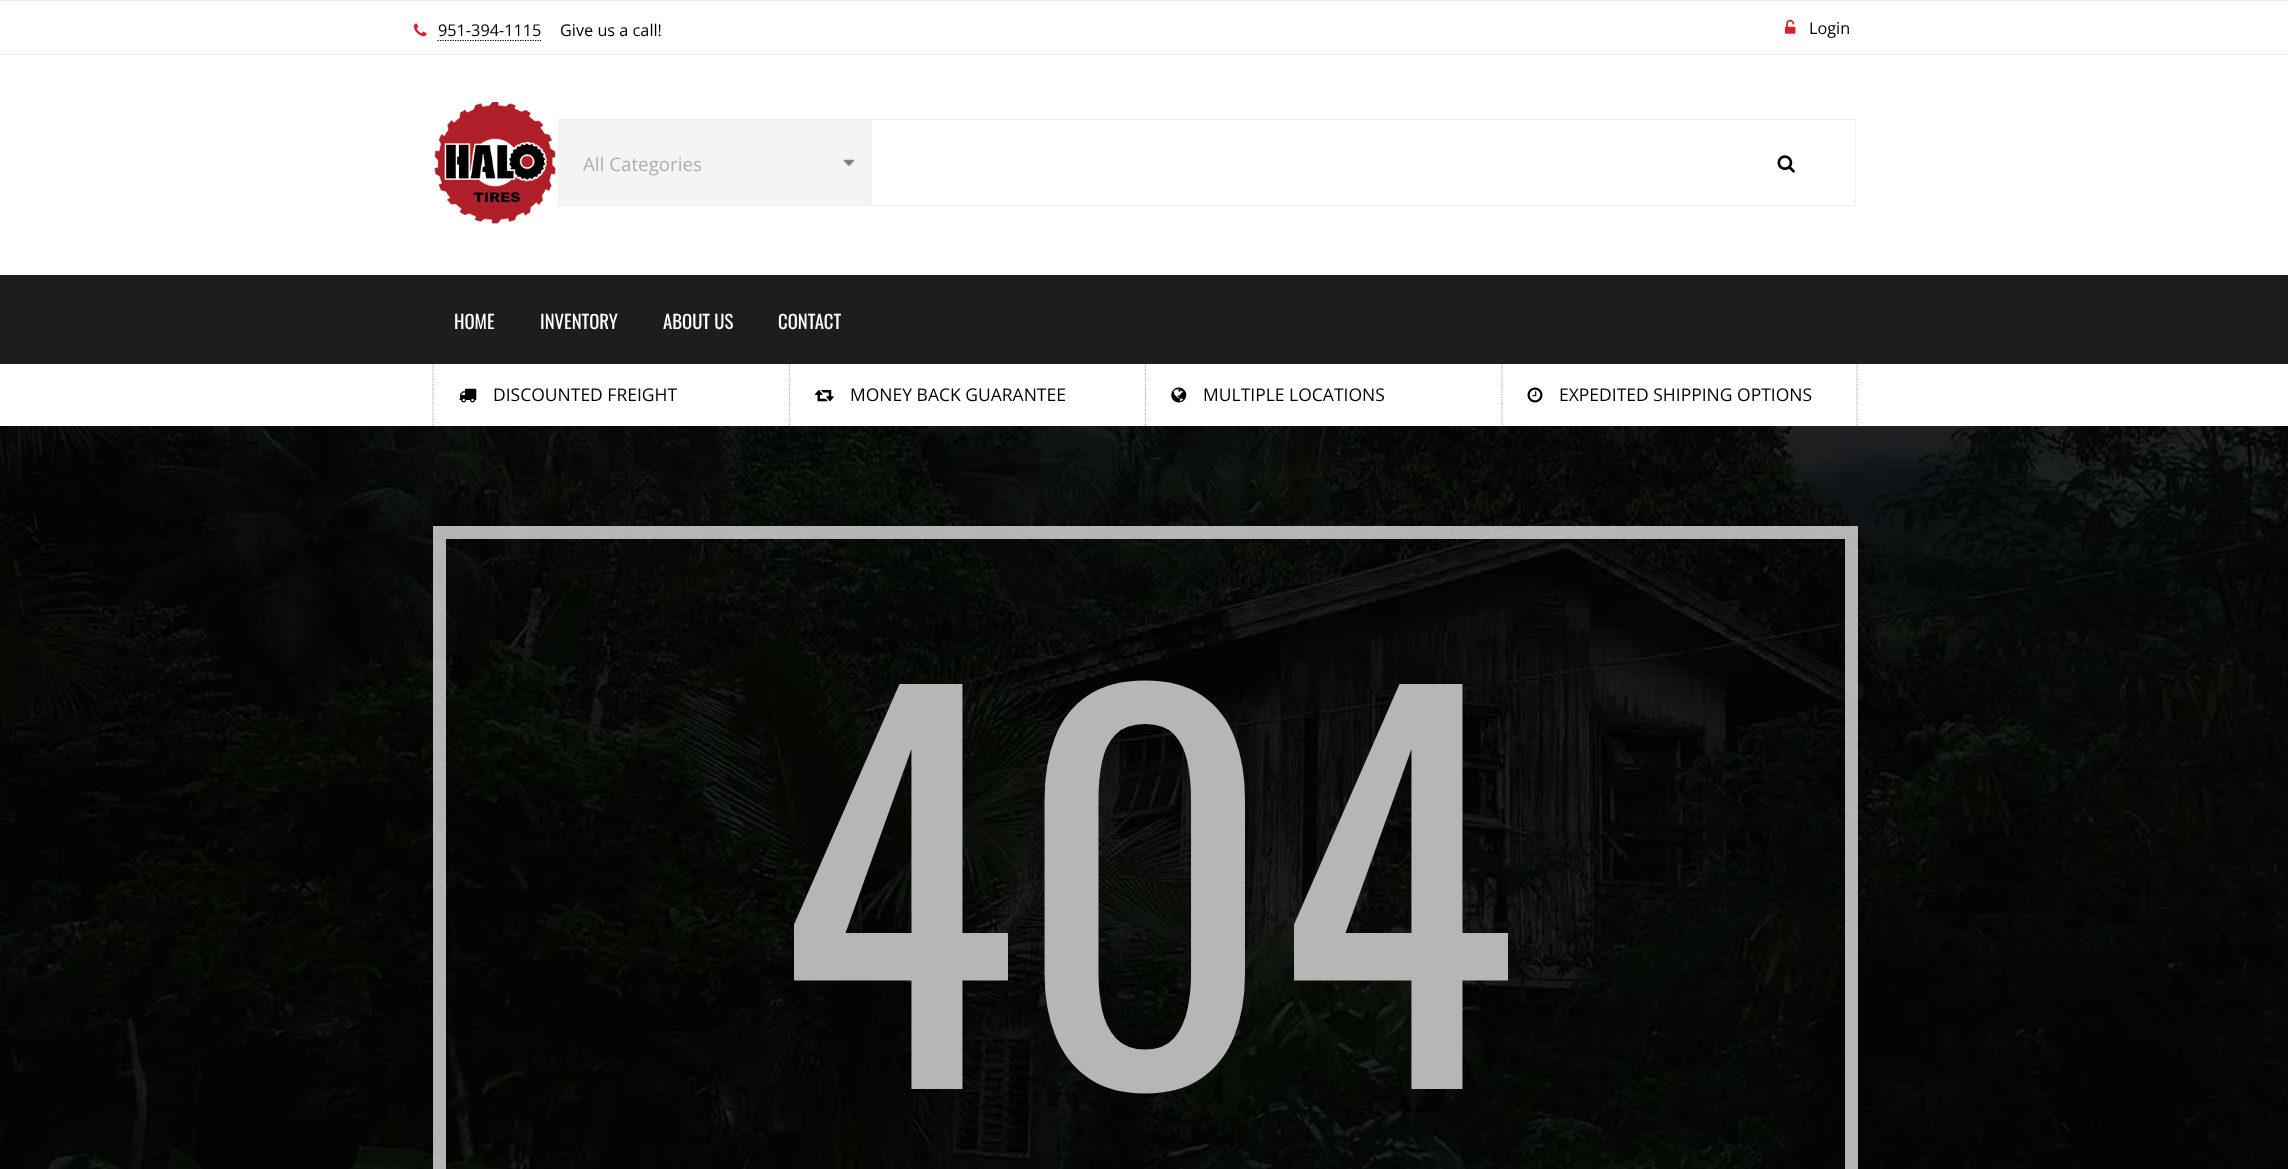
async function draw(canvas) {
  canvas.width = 2288
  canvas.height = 1169
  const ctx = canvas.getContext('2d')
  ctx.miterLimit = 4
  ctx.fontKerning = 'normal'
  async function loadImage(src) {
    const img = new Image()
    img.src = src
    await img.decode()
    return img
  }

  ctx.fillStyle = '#fff'
  ctx.fillRect(0, 0, 2288, 1169)
  ctx.drawImage(await loadImage('image0.png'), 0, 426, 2288, 743)
  ctx.fillStyle = '#ededed'
  ctx.fillRect(0, 0, 2288, 1)
  ctx.fillRect(0, 54, 2288, 1)
  ctx.drawImage(await loadImage('image1.png'), 413, 23, 14, 14)
  ctx.beginPath()
  ctx.moveTo(437.5, 40.5)
  ctx.lineTo(541, 40.5)
  ctx.strokeStyle = '#000'
  ctx.lineWidth = 1.2
  ctx.setLineDash([1.25, 1.25])
  ctx.stroke()
  ctx.font = '16.25px Open Sans'
  ctx.fillStyle = '#000'
  ctx.fillText('951-394-1115', 438, 36)
  ctx.fillText('Give us a call!', 560, 36)
  ctx.drawImage(await loadImage('image2.png'), 1785, 19, 11, 15)
  ctx.fillText('Login', 1809, 34)
  ctx.drawImage(await loadImage('image3.png'), 434, 102, 122, 122)
  ctx.fillStyle = '#f4f4f4'
  ctx.fillRect(559, 120, 312, 85)
  ctx.drawImage(await loadImage('image4.png'), 843, 158, 12, 9)
  ctx.fillStyle = '#f0f0f0'
  ctx.fillRect(558, 119, 313, 1)
  ctx.fillRect(558, 205, 313, 1)
  ctx.fillRect(558, 119, 1, 87)
  ctx.font = '18.75px Open Sans'
  ctx.fillStyle = '#afafaf'
  ctx.fillText('All Categories', 583, 171)
  ctx.strokeStyle = '#f0f0f0'
  ctx.lineWidth = 1
  ctx.setLineDash([])
  ctx.strokeRect(871.5, 119.5, 984, 86)
  ctx.drawImage(await loadImage('image5.png'), 1777, 155, 18, 18)
  ctx.fillStyle = '#1d1d1d'
  ctx.fillRect(0, 275, 2288, 89)
  ctx.font = '18.75px Oswald'
  ctx.fillStyle = '#fff'
  ctx.fillText('HOME', 454, 329)
  ctx.fillText('INVENTORY', 540, 329)
  ctx.fillText('ABOUT US', 663, 329)
  ctx.fillText('CONTACT', 778, 329)
  ctx.beginPath()
  ctx.moveTo(433, 364)
  ctx.lineTo(433, 426)
  ctx.strokeStyle = '#afafaf'
  ctx.lineWidth = 1.2
  ctx.setLineDash([1.25, 1.25])
  ctx.stroke()
  ctx.drawImage(await loadImage('image6.png'), 459, 388, 18, 15)
  ctx.font = '17.5px Open Sans'
  ctx.fillStyle = '#000'
  ctx.fillText('DISCOUNTED FREIGHT', 493, 401)
  ctx.beginPath()
  ctx.moveTo(789.5, 364)
  ctx.lineTo(789.5, 426)
  ctx.stroke()
  ctx.drawImage(await loadImage('image7.png'), 815, 390, 19, 12)
  ctx.fillText('MONEY BACK GUARANTEE', 850, 401)
  ctx.beginPath()
  ctx.moveTo(1145.5, 364)
  ctx.lineTo(1145.5, 426)
  ctx.stroke()
  ctx.drawImage(await loadImage('image8.png'), 1171, 387, 16, 16)
  ctx.fillText('MULTIPLE LOCATIONS', 1203, 401)
  ctx.beginPath()
  ctx.moveTo(1857, 364)
  ctx.lineTo(1857, 426)
  ctx.stroke()
  ctx.beginPath()
  ctx.moveTo(1502, 364)
  ctx.lineTo(1502, 426)
  ctx.stroke()
  ctx.drawImage(await loadImage('image9.png'), 1527, 387, 16, 16)
  ctx.fillText('EXPEDITED SHIPPING OPTIONS', 1559, 401)
  ctx.strokeStyle = '#ffffffb3'
  ctx.lineWidth = 13
  ctx.setLineDash([])
  ctx.strokeRect(439.5, 532.5, 1412, 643)
  ctx.font = '500px Oswald'
  ctx.fillStyle = '#b6b6b5'
  ctx.fillText('404', 774, 1089)
}

draw(document.querySelector('canvas'))
